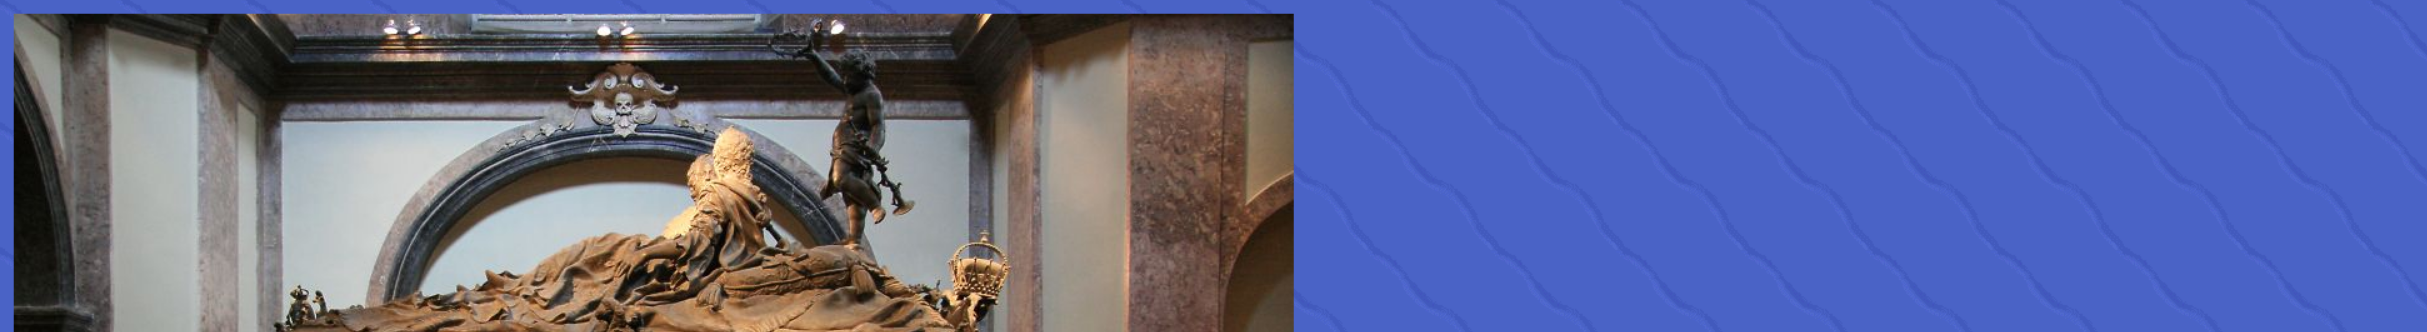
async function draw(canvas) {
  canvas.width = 2427
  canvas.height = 332
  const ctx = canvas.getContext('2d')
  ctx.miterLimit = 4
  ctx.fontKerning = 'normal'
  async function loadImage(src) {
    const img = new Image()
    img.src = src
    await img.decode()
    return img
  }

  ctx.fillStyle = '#fff'
  ctx.fillRect(0, 0, 2427, 332)
  ctx.drawImage(await loadImage('image0.png'), 0, 0, 2427, 332)
  ctx.drawImage(await loadImage('image1.png'), 13, 13, 1281, 319)
}

draw(document.querySelector('canvas'))
